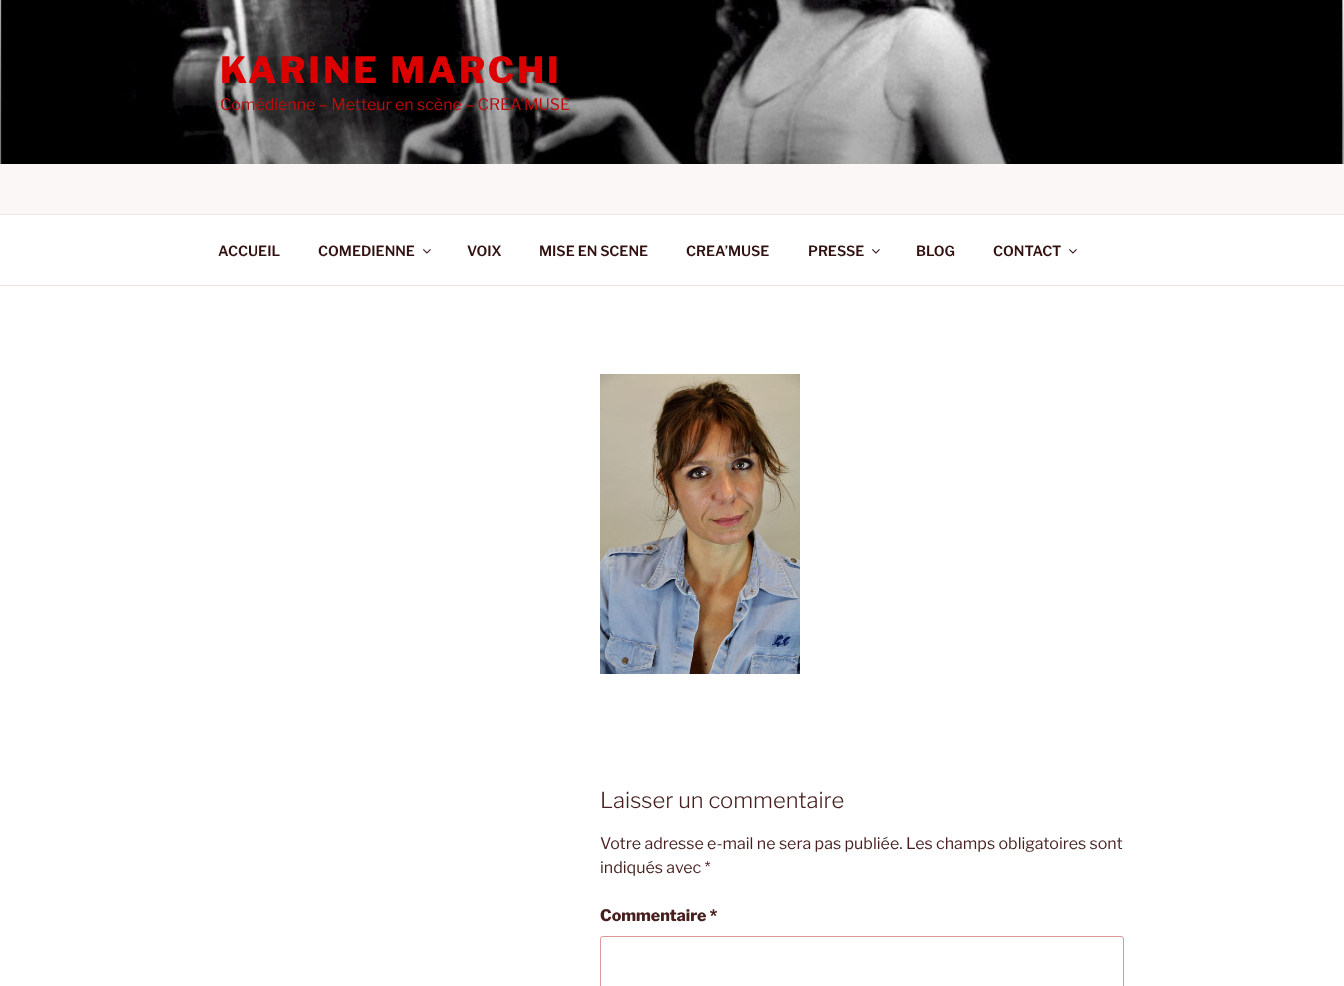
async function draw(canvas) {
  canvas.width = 1344
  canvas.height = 986
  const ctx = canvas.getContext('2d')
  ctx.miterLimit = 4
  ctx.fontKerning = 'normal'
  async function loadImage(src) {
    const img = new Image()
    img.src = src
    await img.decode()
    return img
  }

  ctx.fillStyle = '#fff'
  ctx.fillRect(0, 0, 1344, 986)
  ctx.fillStyle = '#fcf7f7'
  ctx.fillRect(0, 164, 1344, 50)
  ctx.drawImage(await loadImage('image0.png'), 0, 0, 1344, 164)
  ctx.letterSpacing = '2.9px'
  ctx.font = '800 36px Libre Franklin'
  ctx.fillStyle = '#d00'
  ctx.fillText('KARINE MARCHI', 220, 83)
  ctx.letterSpacing = '0px'
  ctx.font = '16px Libre Franklin'
  ctx.fillStyle = '#bd0c0c'
  ctx.fillText('Comédienne – Metteur en scène – CREA\'MUSE', 220, 110)
  ctx.fillStyle = '#f6e4e4'
  ctx.fillRect(0, 214, 1344, 1)
  ctx.fillRect(0, 285, 1344, 1)
  ctx.font = '600 14px Libre Franklin'
  ctx.fillStyle = '#321111'
  ctx.fillText('ACCUEIL', 218, 256)
  ctx.fillText('COMEDIENNE', 318, 256)
  ctx.drawImage(await loadImage('image1.png'), 423, 249, 8, 5)
  ctx.fillText('VOIX', 467, 256)
  ctx.fillText('MISE EN SCENE', 539, 256)
  ctx.fillText('CREA’MUSE', 686, 256)
  ctx.fillText('PRESSE', 808, 256)
  ctx.drawImage(await loadImage('image1.png'), 872, 249, 8, 5)
  ctx.fillText('BLOG', 916, 256)
  ctx.fillText('CONTACT', 993, 256)
  ctx.drawImage(await loadImage('image1.png'), 1069, 249, 8, 5)
  ctx.drawImage(await loadImage('image2.png'), 600, 374, 200, 300)
  ctx.font = '300 22px Libre Franklin'
  ctx.fillStyle = '#471f1f'
  ctx.fillText('Laisser un commentaire', 600, 808)
  ctx.font = '16px Libre Franklin'
  ctx.fillText('Votre adresse e-mail ne sera pas publiée. Les champs obligatoires sont', 600, 849)
  ctx.fillText('indiqués avec *', 600, 873)
  ctx.font = '800 16px Libre Franklin'
  ctx.fillText('Commentaire *', 600, 921)
  ctx.beginPath()
  ctx.roundRect(600.5, 936.5, 523, 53, 2.5)
  ctx.strokeStyle = '#dd9898'
  ctx.stroke()
}

draw(document.querySelector('canvas'))
